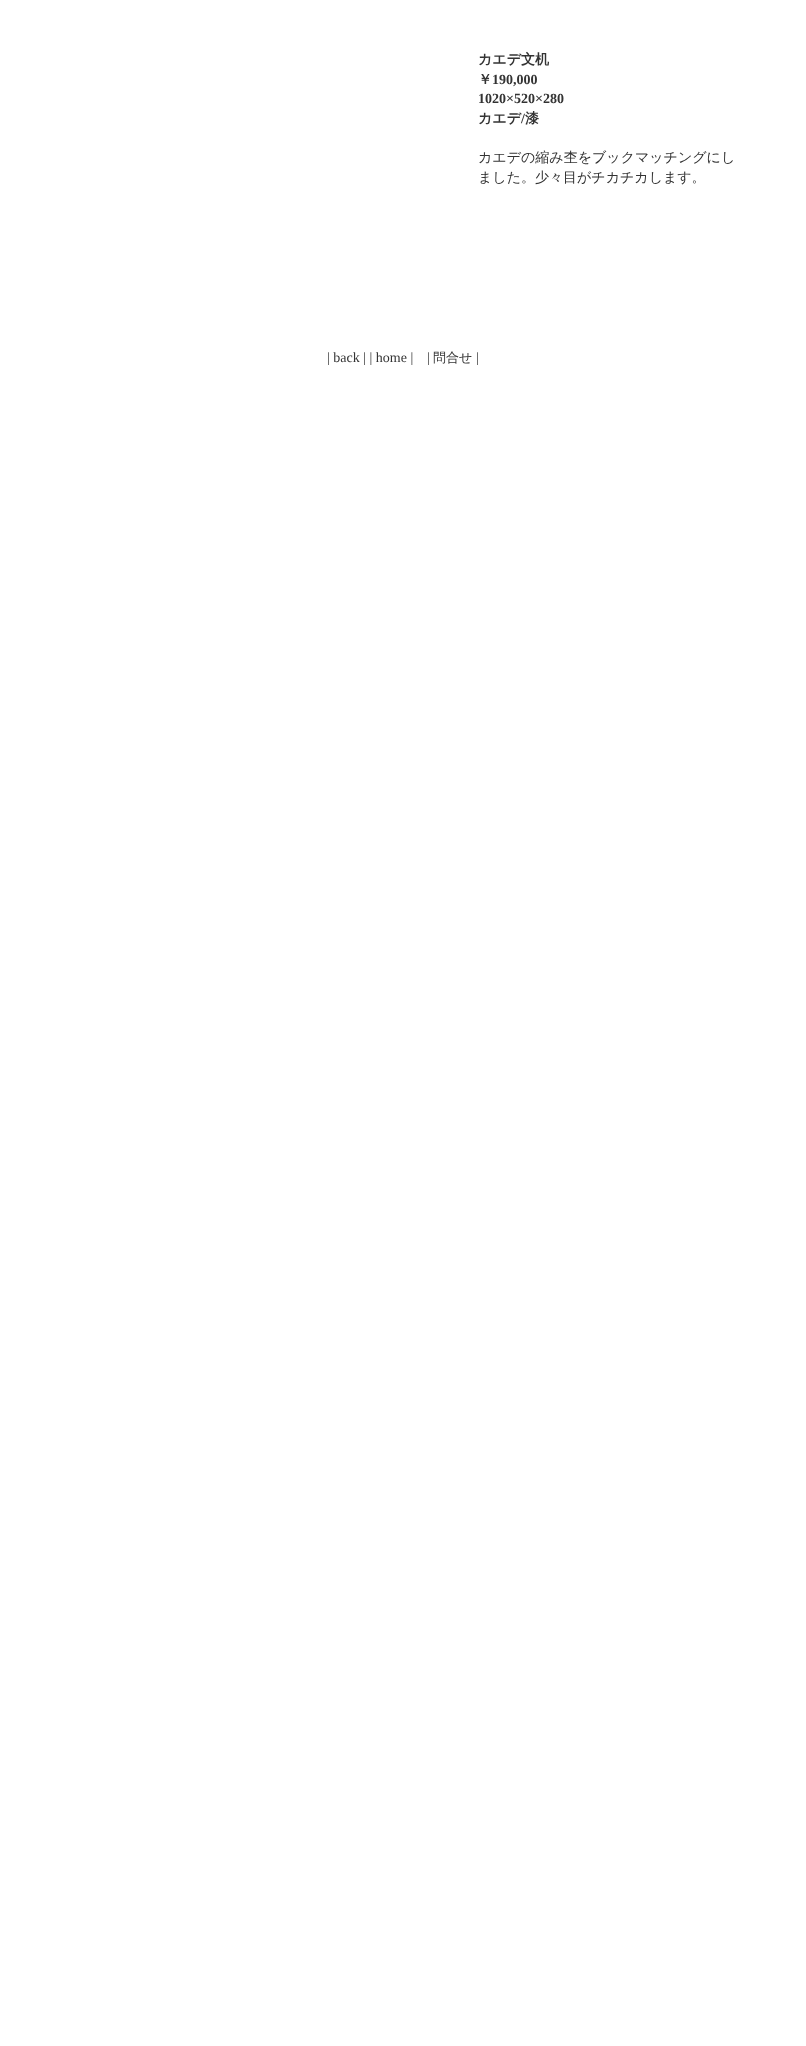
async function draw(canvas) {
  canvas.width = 806
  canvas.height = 2046
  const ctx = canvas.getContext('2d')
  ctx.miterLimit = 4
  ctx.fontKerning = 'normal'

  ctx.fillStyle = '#fff'
  ctx.fillRect(0, 0, 806, 2046)
  ctx.font = 'bold 14px WenQuanYi Zen Hei'
  ctx.fillStyle = '#333'
  ctx.fillText('カエデ文机', 478, 64)
  ctx.fillText('￥', 478, 84)
  ctx.font = 'bold 14px Liberation Serif'
  ctx.fillText('190,000', 492, 84)
  ctx.fillText('1020×520×280', 478, 103)
  ctx.font = 'bold 14px WenQuanYi Zen Hei'
  ctx.fillText('カエデ', 478, 123)
  ctx.font = 'bold 14px Liberation Serif'
  ctx.fillText('/', 521, 123)
  ctx.font = 'bold 14px WenQuanYi Zen Hei'
  ctx.fillText('漆', 525, 123)
  ctx.font = '500 14px WenQuanYi Zen Hei'
  ctx.fillText('カエデの縮み杢をブックマッチングにし', 478, 162)
  ctx.fillText('ました。少々目がチカチカします。', 478, 182)
  ctx.font = '14px Liberation Serif'
  ctx.fillText('| back | | home |', 327, 362)
  ctx.fillText('|', 427, 362)
  ctx.font = '500 13px WenQuanYi Zen Hei'
  ctx.fillText('問合せ', 433, 362)
  ctx.font = '14px Liberation Serif'
  ctx.fillText('|', 476, 362)
}

draw(document.querySelector('canvas'))
